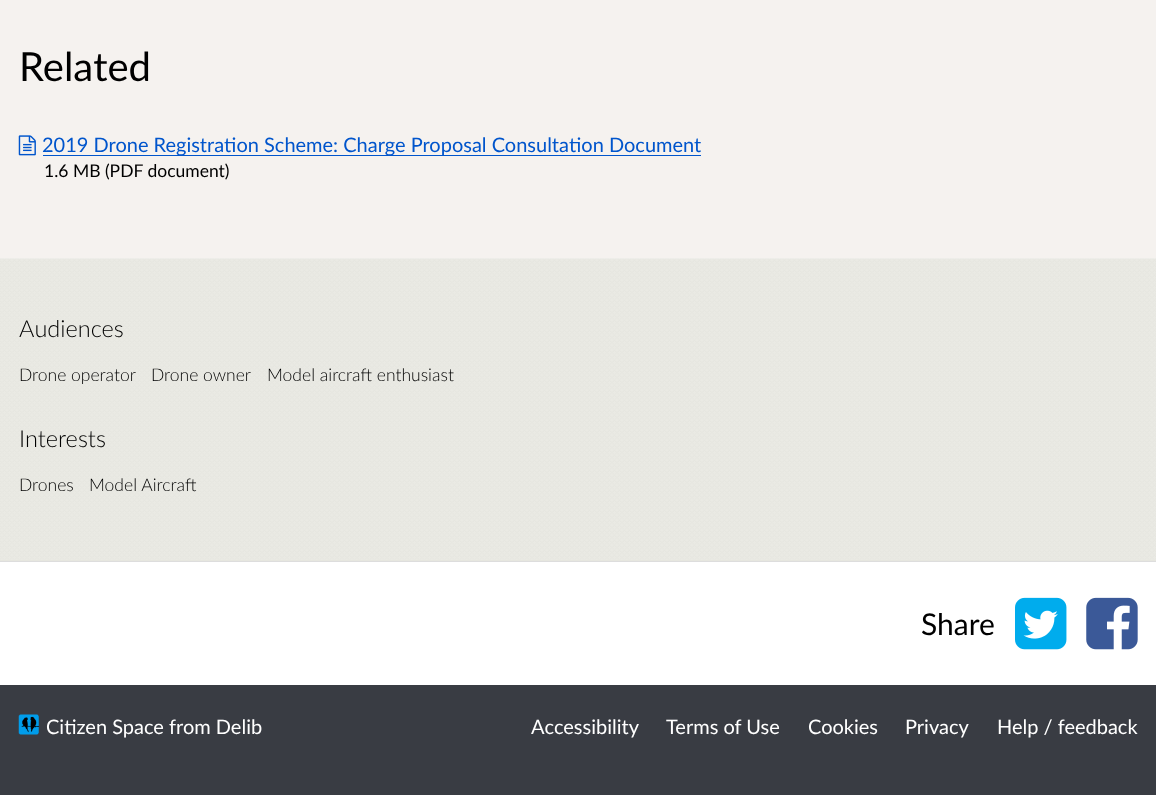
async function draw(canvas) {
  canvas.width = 1156
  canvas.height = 795
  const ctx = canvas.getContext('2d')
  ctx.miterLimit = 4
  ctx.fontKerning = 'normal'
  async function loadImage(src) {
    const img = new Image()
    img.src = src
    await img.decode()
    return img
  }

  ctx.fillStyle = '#fff'
  ctx.fillRect(0, 0, 1156, 795)
  ctx.fillStyle = '#f5f2ef'
  ctx.fillRect(0, 0, 1156, 258)
  ctx.font = '40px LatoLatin'
  ctx.fillStyle = '#000'
  ctx.fillText('Related', 19, 81)
  ctx.drawImage(await loadImage('image0.png'), 18, 135, 18, 21)
  ctx.fillStyle = '#05c'
  ctx.fillRect(43, 155, 658, 1)
  ctx.font = '20px LatoLatin'
  ctx.fillText('2019 Drone Registration Scheme: Charge Proposal Consultation Document', 42, 152)
  ctx.font = '17.5px LatoLatin'
  ctx.fillStyle = '#000'
  ctx.fillText('1.6 MB (PDF document)', 44, 177)
  ctx.fillStyle = '#ddd'
  ctx.fillRect(0, 561, 1156, 1)
  ctx.fillStyle = '#e6e6df'
  ctx.fillRect(0, 560, 1156, 1)
  ctx.drawImage(await loadImage('image1.png'), 0, 258, 1156, 302)
  ctx.font = '300 23.5px LatoLatin'
  ctx.fillStyle = '#000'
  ctx.fillText('Audiences', 19, 337)
  ctx.font = '300 17.5px LatoLatin'
  ctx.fillText('Drone operator', 19, 381)
  ctx.fillText('Drone owner', 151, 381)
  ctx.fillText('Model aircraft enthusiast', 267, 381)
  ctx.font = '300 23.5px LatoLatin'
  ctx.fillText('Interests', 19, 447)
  ctx.font = '300 17.5px LatoLatin'
  ctx.fillText('Drones', 19, 491)
  ctx.fillText('Model Aircraft', 89, 491)
  ctx.font = '30px LatoLatin'
  ctx.fillText('Share', 921, 635)
  ctx.drawImage(await loadImage('image2.png'), 1015, 597, 52, 53)
  ctx.drawImage(await loadImage('image3.png'), 1086, 597, 52, 53)
  ctx.fillStyle = '#393c43'
  ctx.fillRect(0, 685, 1156, 110)
  ctx.drawImage(await loadImage('image4.png'), 18, 714, 21, 21)
  ctx.font = '20px LatoLatin'
  ctx.fillStyle = '#fff'
  ctx.fillText('Citizen Space from Delib', 46, 734)
  ctx.fillText('Accessibility', 531, 734)
  ctx.fillText('Terms of Use', 666, 734)
  ctx.fillText('Cookies', 808, 734)
  ctx.fillText('Privacy', 905, 734)
  ctx.fillText('Help / feedback', 997, 734)
}

draw(document.querySelector('canvas'))
